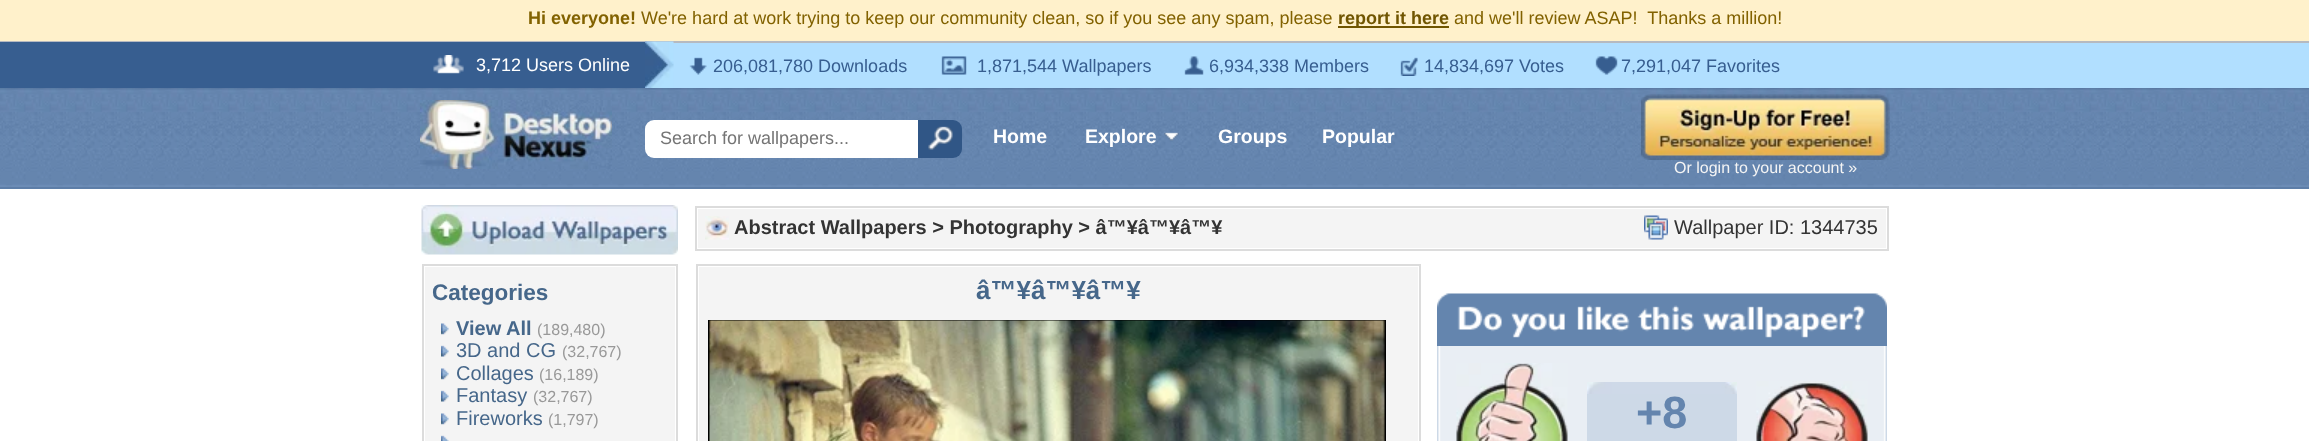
async function draw(canvas) {
  canvas.width = 2309
  canvas.height = 441
  const ctx = canvas.getContext('2d')
  ctx.miterLimit = 4
  ctx.fontKerning = 'normal'
  async function loadImage(src) {
    const img = new Image()
    img.src = src
    await img.decode()
    return img
  }

  ctx.fillStyle = '#fff'
  ctx.fillRect(0, 0, 2309, 441)
  ctx.fillStyle = '#fff1cb'
  ctx.fillRect(0, 0, 2309, 41)
  ctx.font = 'bold 18px Liberation Sans'
  ctx.fillStyle = '#826200'
  ctx.fillText('Hi everyone!', 528, 24)
  ctx.font = '18px Liberation Sans'
  ctx.fillText('We\'re hard at work trying to keep our community clean, so if you see any spam, please', 641, 24)
  ctx.fillStyle = '#705500'
  ctx.fillRect(1338, 26, 111, 2)
  ctx.font = 'bold 18px Liberation Sans'
  ctx.fillText('report it here', 1338, 24)
  ctx.font = '18px Liberation Sans'
  ctx.fillStyle = '#826200'
  ctx.fillText('and we\'ll review ASAP!  Thanks a million!', 1454, 24)
  ctx.fillStyle = '#b1dfff'
  ctx.fillRect(673, 43, 1636, 45)
  ctx.fillStyle = '#b6bac0'
  ctx.fillRect(0, 41, 2309, 2)
  ctx.fillStyle = '#375e90'
  ctx.fillRect(0, 42, 645, 46)
  ctx.drawImage(await loadImage('image0.png'), 433, 55, 31, 19)
  ctx.fillStyle = '#fff'
  ctx.fillText('3,712 Users Online', 476, 71)
  ctx.drawImage(await loadImage('image1.png'), 645, 41, 29, 47)
  ctx.drawImage(await loadImage('image2.png'), 689, 57, 18, 18)
  ctx.fillStyle = '#375e90'
  ctx.fillText('206,081,780 Downloads', 713, 72)
  ctx.drawImage(await loadImage('image3.png'), 941, 56, 26, 19)
  ctx.fillText('1,871,544 Wallpapers', 977, 72)
  ctx.drawImage(await loadImage('image4.png'), 1184, 56, 20, 19)
  ctx.fillText('6,934,338 Members', 1209, 72)
  ctx.drawImage(await loadImage('image5.png'), 1400, 57, 18, 19)
  ctx.fillText('14,834,697 Votes', 1424, 72)
  ctx.drawImage(await loadImage('image6.png'), 1595, 56, 23, 19)
  ctx.fillText('7,291,047 Favorites', 1621, 72)
  ctx.fillStyle = '#6384ad'
  ctx.fillRect(0, 188, 2309, 1)
  ctx.drawImage(await loadImage('image7.png'), 0, 88, 2309, 101)
  ctx.drawImage(await loadImage('image8.png'), 420, 100, 192, 69)
  ctx.fillStyle = '#fff'
  ctx.beginPath()
  ctx.roundRect(645, 120, 297, 38, [9, 0, 0, 9])
  ctx.fill()
  ctx.fillStyle = '#757575'
  ctx.fillText('Search for wallpapers...', 660, 144)
  ctx.fillStyle = '#305686'
  ctx.beginPath()
  ctx.roundRect(918, 120, 44, 38, [0, 9, 9, 0])
  ctx.fill()
  ctx.drawImage(await loadImage('image9.png'), 928, 126, 25, 24)
  ctx.font = 'bold 19.5px Liberation Sans'
  ctx.fillStyle = '#fff'
  ctx.fillText('Home', 993, 143)
  ctx.fillText('Explore', 1085, 143)
  ctx.drawImage(await loadImage('image10.png'), 1164, 132, 15, 9)
  ctx.fillText('Groups', 1218, 143)
  ctx.fillText('Popular', 1322, 143)
  ctx.drawImage(await loadImage('image11.png'), 1641, 94, 249, 66)
  ctx.font = '16px Liberation Sans'
  ctx.fillStyle = '#f4f4f4'
  ctx.fillText('Or login to your account »', 1674, 173)
  ctx.drawImage(await loadImage('image12.png'), 421, 205, 257, 50)
  ctx.strokeStyle = '#dcdcdc'
  ctx.lineWidth = 2
  ctx.strokeRect(423, 265, 254, 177)
  ctx.fillRect(425, 267, 250, 174)
  ctx.font = 'bold 22.5px Liberation Sans'
  ctx.fillStyle = '#46678a'
  ctx.fillText('Categories', 432, 300)
  ctx.drawImage(await loadImage('image13.png'), 441, 323, 8, 12)
  ctx.font = 'bold 20px Liberation Sans'
  ctx.fillText('View All', 456, 335)
  ctx.font = '16px Liberation Sans'
  ctx.fillStyle = '#999'
  ctx.fillText('(189,480)', 537, 335)
  ctx.drawImage(await loadImage('image14.png'), 441, 345, 8, 12)
  ctx.font = '20px Liberation Sans'
  ctx.fillStyle = '#46678a'
  ctx.fillText('3D and CG', 456, 357)
  ctx.font = '16px Liberation Sans'
  ctx.fillStyle = '#999'
  ctx.fillText('(32,767)', 562, 357)
  ctx.drawImage(await loadImage('image13.png'), 441, 368, 8, 12)
  ctx.font = '20px Liberation Sans'
  ctx.fillStyle = '#46678a'
  ctx.fillText('Collages', 456, 380)
  ctx.font = '16px Liberation Sans'
  ctx.fillStyle = '#999'
  ctx.fillText('(16,189)', 539, 380)
  ctx.drawImage(await loadImage('image14.png'), 441, 390, 8, 12)
  ctx.font = '20px Liberation Sans'
  ctx.fillStyle = '#46678a'
  ctx.fillText('Fantasy', 456, 402)
  ctx.font = '16px Liberation Sans'
  ctx.fillStyle = '#999'
  ctx.fillText('(32,767)', 533, 402)
  ctx.drawImage(await loadImage('image13.png'), 441, 413, 8, 12)
  ctx.font = '20px Liberation Sans'
  ctx.fillStyle = '#46678a'
  ctx.fillText('Fireworks', 456, 425)
  ctx.font = '16px Liberation Sans'
  ctx.fillStyle = '#999'
  ctx.fillText('(1,797)', 548, 425)
  ctx.drawImage(await loadImage('image15.png'), 441, 435, 8, 6)
  ctx.strokeRect(696, 207, 1192, 43)
  ctx.fillStyle = '#f4f4f4'
  ctx.fillRect(698, 209, 1188, 39)
  ctx.drawImage(await loadImage('image16.png'), 705, 216, 24, 24)
  ctx.font = 'bold 20px Liberation Sans'
  ctx.fillStyle = '#333'
  ctx.fillText('Abstract Wallpapers > Photography > â™¥â™¥â™¥', 734, 234)
  ctx.drawImage(await loadImage('image17.png'), 1644, 215, 24, 25)
  ctx.font = '20px Liberation Sans'
  ctx.fillText('Wallpaper ID: 1344735', 1674, 234)
  ctx.strokeRect(697, 265, 723, 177)
  ctx.fillStyle = '#f4f4f4'
  ctx.fillRect(699, 267, 719, 174)
  ctx.font = 'bold 26px Liberation Sans'
  ctx.fillStyle = '#46678a'
  ctx.fillText('â™¥â™¥â™¥', 976, 299)
  ctx.strokeStyle = '#000'
  ctx.strokeRect(709, 321, 676, 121)
  ctx.drawImage(await loadImage('image18.png'), 709, 320, 676, 121)
  ctx.drawImage(await loadImage('image19.png'), 1437, 293, 450, 53)
  ctx.drawImage(await loadImage('image20.png'), 1437, 346, 450, 95)
  ctx.drawImage(await loadImage('image21.png'), 1456, 363, 112, 78)
  ctx.fillStyle = '#cdd9e7'
  ctx.fillRect(1587, 394, 150, 47)
  ctx.drawImage(await loadImage('image22.png'), 1587, 382, 150, 12)
  ctx.font = 'bold 45px Liberation Sans'
  ctx.fillStyle = '#6485ae'
  ctx.fillText('+8', 1636, 428)
  ctx.drawImage(await loadImage('image23.png'), 1756, 381, 112, 60)
}

draw(document.querySelector('canvas'))
